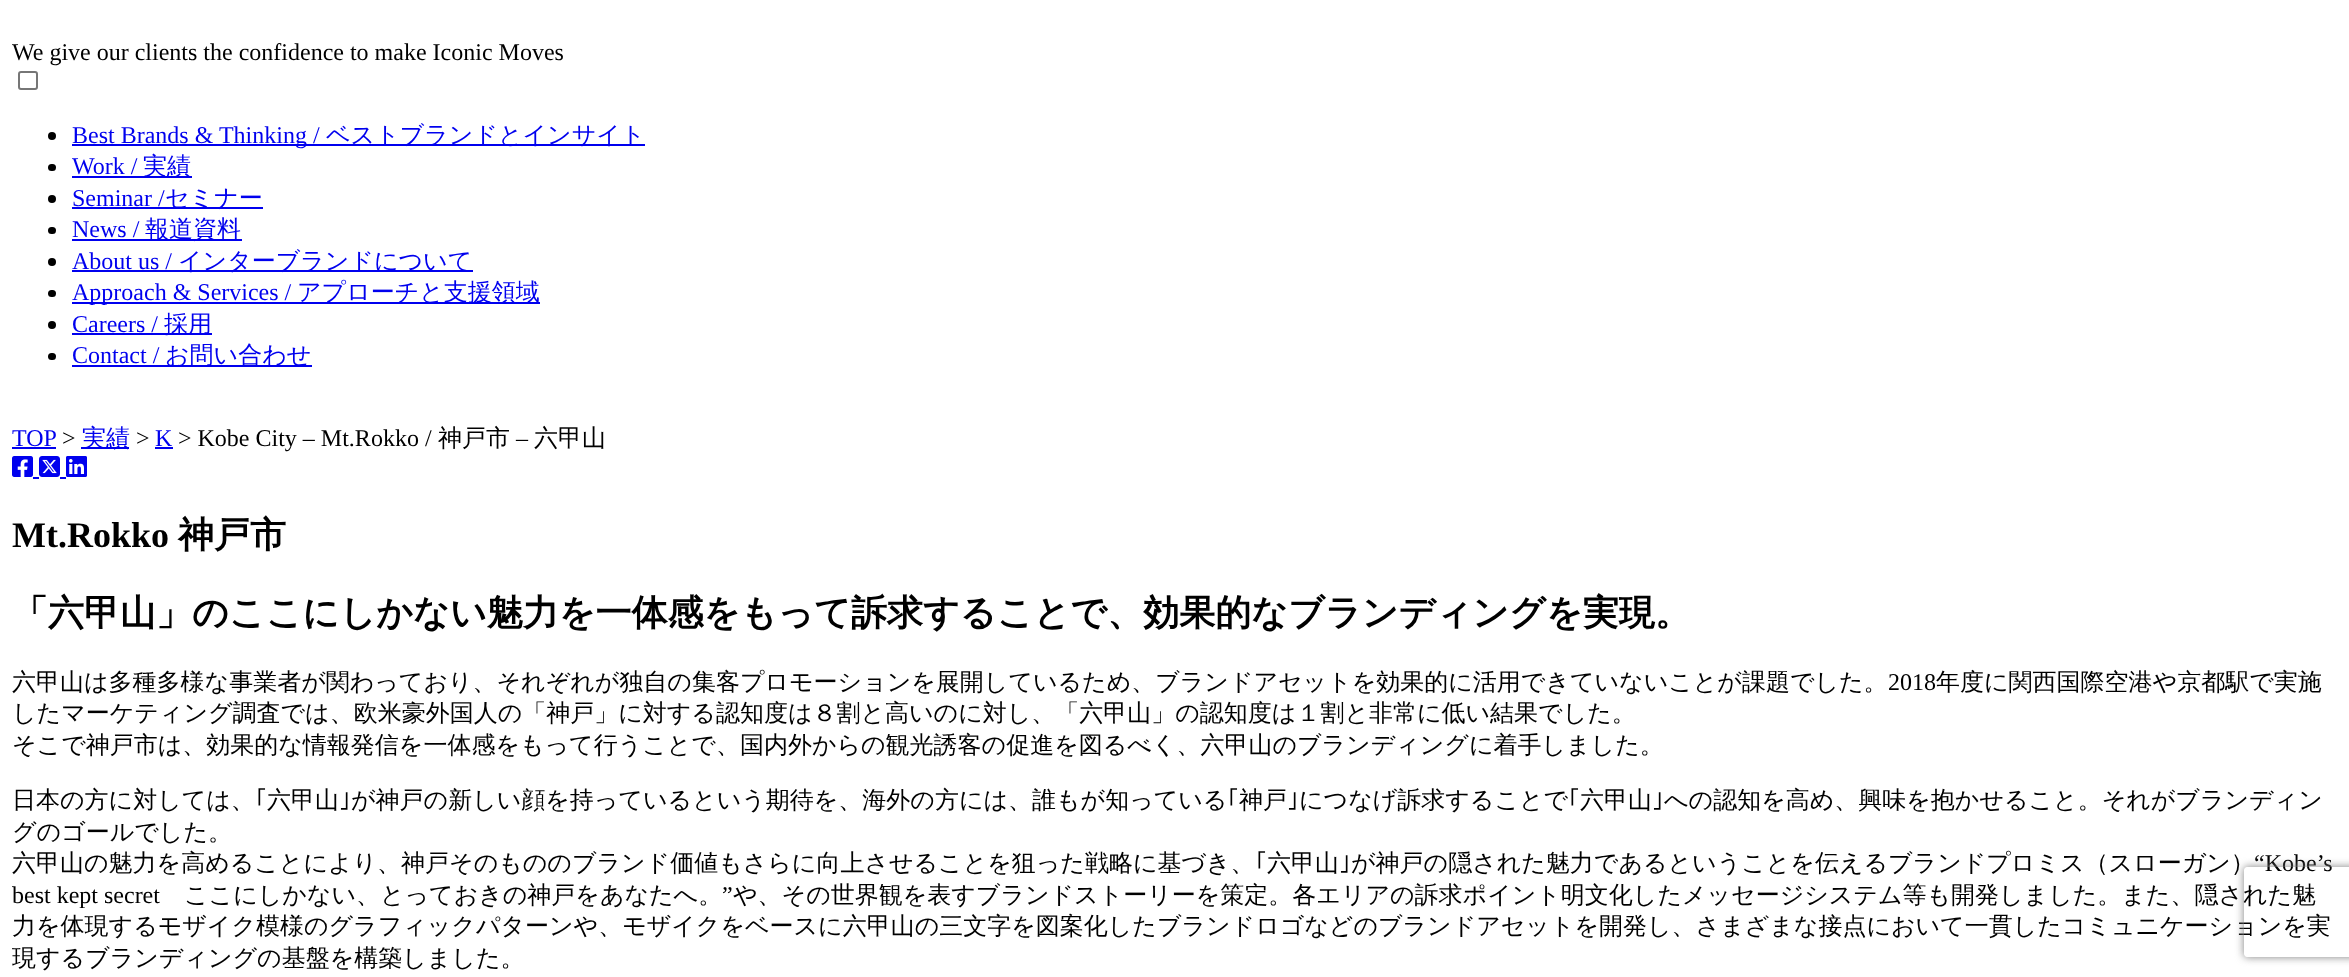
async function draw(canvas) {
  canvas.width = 2349
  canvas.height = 977
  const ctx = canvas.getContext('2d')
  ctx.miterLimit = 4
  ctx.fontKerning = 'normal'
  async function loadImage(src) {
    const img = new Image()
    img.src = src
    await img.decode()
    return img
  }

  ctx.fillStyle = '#fff'
  ctx.fillRect(0, 0, 2349, 977)
  ctx.font = '24px Liberation Serif'
  ctx.fillStyle = '#000'
  ctx.fillText('We give our clients the confidence to make Iconic Moves', 12, 60)
  ctx.beginPath()
  ctx.roundRect(19, 72, 18, 17, 2)
  ctx.strokeStyle = '#767676'
  ctx.lineWidth = 2
  ctx.stroke()
  ctx.beginPath()
  ctx.arc(52, 136, 4, 0, 2 * Math.PI)
  ctx.fill()
  ctx.fillStyle = '#00e'
  ctx.fillRect(72, 144, 573, 2)
  ctx.fillText('Best Brands & Thinking /', 72, 143)
  ctx.font = '500 24px WenQuanYi Zen Hei'
  ctx.fillText('ベストブランドとインサイト', 326, 143)
  ctx.fillStyle = '#000'
  ctx.beginPath()
  ctx.roundRect(48, 164, 8, 7, 3.5)
  ctx.fill()
  ctx.font = '24px Liberation Serif'
  ctx.fillStyle = '#00e'
  ctx.fillText('Work /', 72, 174)
  ctx.fillRect(72, 176, 120, 2)
  ctx.font = '500 24px WenQuanYi Zen Hei'
  ctx.fillText('実績', 143, 174)
  ctx.fillStyle = '#000'
  ctx.beginPath()
  ctx.arc(52, 199, 4, 0, 2 * Math.PI)
  ctx.fill()
  ctx.font = '24px Liberation Serif'
  ctx.fillStyle = '#00e'
  ctx.fillText('Seminar /', 72, 206)
  ctx.fillRect(72, 207, 191, 2)
  ctx.font = '500 24px WenQuanYi Zen Hei'
  ctx.fillText('セミナー', 165, 206)
  ctx.fillStyle = '#000'
  ctx.beginPath()
  ctx.roundRect(48, 227, 8, 7, 3.5)
  ctx.fill()
  ctx.font = '24px Liberation Serif'
  ctx.fillStyle = '#00e'
  ctx.fillText('News /', 72, 237)
  ctx.fillRect(72, 239, 170, 2)
  ctx.font = '500 24px WenQuanYi Zen Hei'
  ctx.fillText('報道資料', 145, 237)
  ctx.fillStyle = '#000'
  ctx.beginPath()
  ctx.arc(52, 262, 4, 0, 2 * Math.PI)
  ctx.fill()
  ctx.font = '24px Liberation Serif'
  ctx.fillStyle = '#00e'
  ctx.fillText('About us /', 72, 269)
  ctx.fillRect(72, 270, 401, 2)
  ctx.font = '500 24px WenQuanYi Zen Hei'
  ctx.fillText('インターブランドについて', 178, 269)
  ctx.fillStyle = '#000'
  ctx.beginPath()
  ctx.roundRect(48, 290, 8, 7, 3.5)
  ctx.fill()
  ctx.fillStyle = '#00e'
  ctx.fillRect(72, 302, 468, 2)
  ctx.font = '24px Liberation Serif'
  ctx.fillText('Approach & Services /', 72, 300)
  ctx.font = '500 24px WenQuanYi Zen Hei'
  ctx.fillText('アプローチと支援領域', 297, 300)
  ctx.fillStyle = '#000'
  ctx.beginPath()
  ctx.arc(52, 325, 4, 0, 2 * Math.PI)
  ctx.fill()
  ctx.font = '24px Liberation Serif'
  ctx.fillStyle = '#00e'
  ctx.fillText('Careers /', 72, 332)
  ctx.fillRect(72, 333, 140, 2)
  ctx.font = '500 24px WenQuanYi Zen Hei'
  ctx.fillText('採用', 164, 332)
  ctx.fillStyle = '#000'
  ctx.beginPath()
  ctx.roundRect(48, 353, 8, 7, 3.5)
  ctx.fill()
  ctx.font = '24px Liberation Serif'
  ctx.fillStyle = '#00e'
  ctx.fillText('Contact /', 72, 363)
  ctx.fillRect(72, 365, 240, 2)
  ctx.font = '500 24px WenQuanYi Zen Hei'
  ctx.fillText('お問い合わせ', 165, 363)
  ctx.font = '24px Liberation Serif'
  ctx.fillText('TOP', 12, 446)
  ctx.fillRect(12, 447, 44, 2)
  ctx.fillStyle = '#000'
  ctx.fillText('>', 62, 446)
  ctx.fillStyle = '#00e'
  ctx.fillRect(81, 447, 48, 2)
  ctx.font = '500 24px WenQuanYi Zen Hei'
  ctx.fillText('実績', 82, 446)
  ctx.font = '24px Liberation Serif'
  ctx.fillStyle = '#000'
  ctx.fillText('>', 136, 446)
  ctx.fillStyle = '#00e'
  ctx.fillText('K', 155, 446)
  ctx.fillRect(155, 447, 18, 2)
  ctx.fillStyle = '#000'
  ctx.fillText('> Kobe City – Mt.Rokko /', 178, 446)
  ctx.font = '500 24px WenQuanYi Zen Hei'
  ctx.fillText('神戸市', 438, 446)
  ctx.font = '24px Liberation Serif'
  ctx.fillText('–', 516, 446)
  ctx.font = '500 24px WenQuanYi Zen Hei'
  ctx.fillText('六甲山', 534, 446)
  ctx.drawImage(await loadImage('image0.png'), 12, 456, 21, 21)
  ctx.drawImage(await loadImage('image1.png'), 39, 456, 21, 21)
  ctx.fillStyle = '#00e'
  ctx.fillRect(33, 477, 6, 2)
  ctx.drawImage(await loadImage('image2.png'), 66, 456, 21, 21)
  ctx.fillRect(60, 477, 6, 2)
  ctx.font = 'bold 36px Liberation Serif'
  ctx.fillStyle = '#000'
  ctx.fillText('Mt.Rokko', 12, 547)
  ctx.font = 'bold 36px WenQuanYi Zen Hei'
  ctx.fillText('神戸市', 178, 547)
  ctx.fillText('「六甲山」のここにしかない魅力を一体感をもって訴求することで、効果的なブランディングを実現。', 12, 625)
  ctx.font = '500 24px WenQuanYi Zen Hei'
  ctx.fillText('六甲山は多種多様な事業者が関わっており、それぞれが独自の集客プロモーションを展開しているため、ブランドアセットを効果的に活用できていないことが課題でした。', 12, 690)
  ctx.font = '24px Liberation Serif'
  ctx.fillText('2018', 1888, 690)
  ctx.font = '500 24px WenQuanYi Zen Hei'
  ctx.fillText('年度に関西国際空港や京都駅で実施', 1936, 690)
  ctx.fillText('したマーケティング調査では、欧米豪外国人の「神戸」に対する認知度は８割と高いのに対し、「六甲山」の認知度は１割と非常に低い結果でした。', 12, 721)
  ctx.fillText('そこで神戸市は、効果的な情報発信を一体感をもって行うことで、国内外からの観光誘客の促進を図るべく、六甲山のブランディングに着手しました。', 12, 753)
  ctx.fillText('日本の方に対しては、', 12, 808)
  ctx.font = '24px IPAPGothic'
  ctx.fillText('｢', 255, 808)
  ctx.font = '500 24px WenQuanYi Zen Hei'
  ctx.fillText('六甲山', 267, 808)
  ctx.font = '24px IPAPGothic'
  ctx.fillText('｣', 339, 808)
  ctx.font = '500 24px WenQuanYi Zen Hei'
  ctx.fillText('が神戸の新しい顔を持っているという期待を、海外の方には、誰もが知っている', 351, 808)
  ctx.font = '24px IPAPGothic'
  ctx.fillText('｢', 1227, 808)
  ctx.font = '500 24px WenQuanYi Zen Hei'
  ctx.fillText('神戸', 1239, 808)
  ctx.font = '24px IPAPGothic'
  ctx.fillText('｣', 1287, 808)
  ctx.font = '500 24px WenQuanYi Zen Hei'
  ctx.fillText('につなげ訴求することで', 1299, 808)
  ctx.font = '24px IPAPGothic'
  ctx.fillText('｢', 1568, 808)
  ctx.font = '500 24px WenQuanYi Zen Hei'
  ctx.fillText('六甲山', 1580, 808)
  ctx.font = '24px IPAPGothic'
  ctx.fillText('｣', 1652, 808)
  ctx.font = '500 24px WenQuanYi Zen Hei'
  ctx.fillText('への認知を高め、興味を抱かせること。それがブランディン', 1664, 808)
  ctx.fillText('グのゴールでした。', 12, 840)
  ctx.fillText('六甲山の魅力を高めることにより、神戸そのもののブランド価値もさらに向上させることを狙った戦略に基づき、', 12, 871)
  ctx.font = '24px IPAPGothic'
  ctx.fillText('｢', 1255, 871)
  ctx.font = '500 24px WenQuanYi Zen Hei'
  ctx.fillText('六甲山', 1267, 871)
  ctx.font = '24px IPAPGothic'
  ctx.fillText('｣', 1339, 871)
  ctx.font = '500 24px WenQuanYi Zen Hei'
  ctx.fillText('が神戸の隠された魅力であるということを伝えるブランドプロミス（スローガン）', 1351, 871)
  ctx.font = '24px Liberation Serif'
  ctx.fillText('“Kobe’s', 2254, 871)
  ctx.fillText('best kept secret', 12, 903)
  ctx.font = '500 24px WenQuanYi Zen Hei'
  ctx.fillText('ここにしかない、とっておきの神戸をあなたへ。', 184, 903)
  ctx.font = '24px Liberation Serif'
  ctx.fillText('”', 722, 903)
  ctx.font = '500 24px WenQuanYi Zen Hei'
  ctx.fillText('や、その世界観を表すブランドストーリーを策定。各エリアの訴求ポイント明文化したメッセージシステム等も開発しました。また、隠された魅', 733, 903)
  ctx.fillText('力を体現するモザイク模様のグラフィックパターンや、モザイクをベースに六甲山の三文字を図案化したブランドロゴなどのブランドアセットを開発し、さまざまな接点において一貫したコミュニケーションを実', 12, 934)
  ctx.fillText('現するブランディングの基盤を構築しました。', 12, 966)
  ctx.save()
  ctx.beginPath()
  ctx.moveTo(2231, 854)
  ctx.lineTo(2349, 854)
  ctx.lineTo(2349, 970)
  ctx.lineTo(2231, 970)
  ctx.closePath()
  ctx.moveTo(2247, 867)
  ctx.lineTo(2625, 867)
  ctx.bezierCurveTo(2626.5, 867, 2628, 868.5, 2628, 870)
  ctx.lineTo(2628, 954)
  ctx.bezierCurveTo(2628, 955.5, 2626.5, 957, 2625, 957)
  ctx.lineTo(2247, 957)
  ctx.bezierCurveTo(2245.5, 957, 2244, 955.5, 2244, 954)
  ctx.lineTo(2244, 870)
  ctx.bezierCurveTo(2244, 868.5, 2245.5, 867, 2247, 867)
  ctx.closePath()
  ctx.clip('evenodd')
  ctx.fillStyle = '#808080'
  ctx.filter = 'blur(4px)'
  ctx.beginPath()
  ctx.roundRect(2244, 867, 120, 90, 3)
  ctx.fill()
  ctx.filter = 'none'
  ctx.restore()
}

draw(document.querySelector('canvas'))
